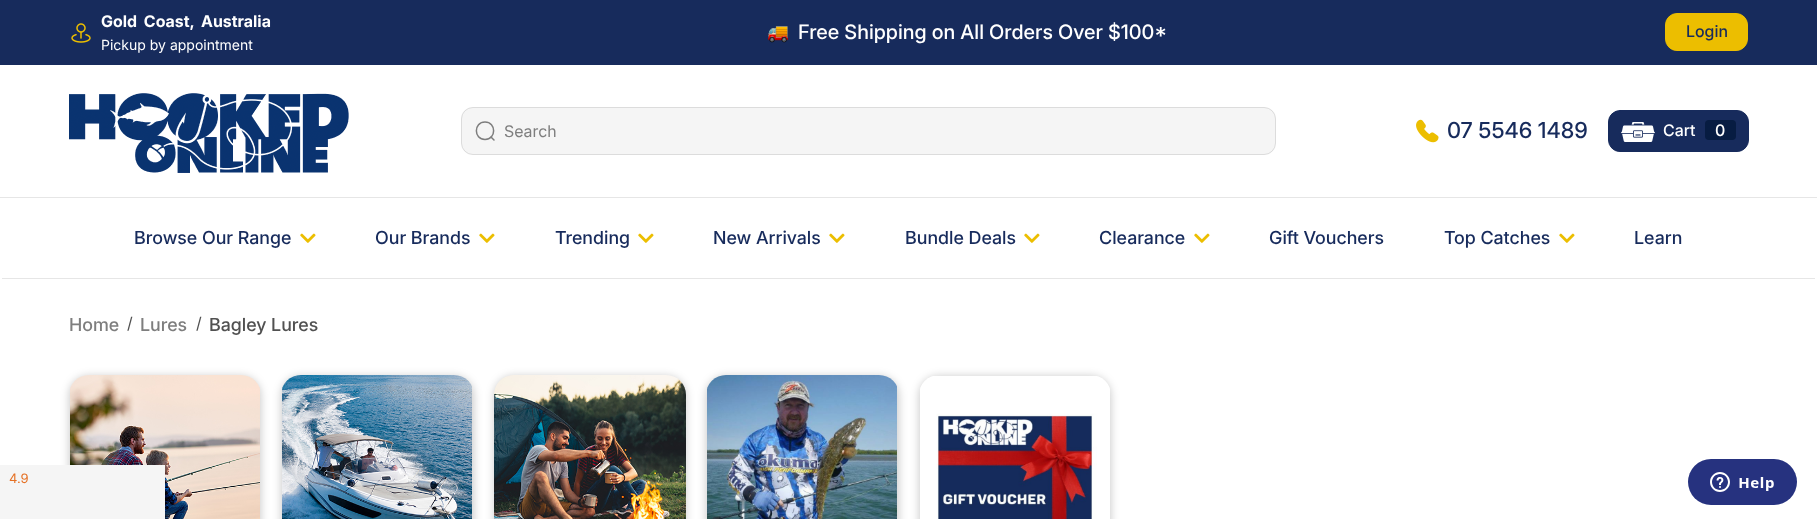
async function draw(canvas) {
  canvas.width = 1817
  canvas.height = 519
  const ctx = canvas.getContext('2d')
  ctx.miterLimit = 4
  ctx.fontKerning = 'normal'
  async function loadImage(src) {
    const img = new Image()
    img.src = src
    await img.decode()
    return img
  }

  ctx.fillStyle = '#fff'
  ctx.fillRect(0, 0, 1817, 519)
  ctx.fillStyle = '#172b5c'
  ctx.fillRect(0, 0, 1817, 65)
  ctx.drawImage(await loadImage('image0.png'), 71, 23, 20, 20)
  ctx.wordSpacing = '3px'
  ctx.font = 'bold 16px Inter'
  ctx.fillStyle = '#fff'
  ctx.fillText('Gold Coast,', 101, 27)
  ctx.wordSpacing = '0px'
  ctx.fillText('Australia', 201, 27)
  ctx.font = '14px Inter'
  ctx.fillText('Pickup by appointment', 101, 50)
  ctx.drawImage(await loadImage('image1.png'), 768, 26, 20, 17)
  ctx.font = '500 20px Inter'
  ctx.fillText('Free Shipping on All Orders Over $100*', 798, 39)
  ctx.fillStyle = '#ecbe00'
  ctx.beginPath()
  ctx.roundRect(1665.5, 13.5, 82, 37, 11.5)
  ctx.fill()
  ctx.strokeStyle = '#ecbe00'
  ctx.stroke()
  ctx.font = '500 16px "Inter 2"'
  ctx.fillStyle = '#172b5c'
  ctx.fillText('Login', 1686, 37)
  ctx.fillStyle = '#e6e6e6'
  ctx.fillRect(0, 197, 1817, 1)
  ctx.drawImage(await loadImage('image2.png'), 69, 93, 280, 80)
  ctx.fillStyle = '#f5f5f5'
  ctx.beginPath()
  ctx.roundRect(461, 107, 815, 48, 12)
  ctx.fill()
  ctx.beginPath()
  ctx.roundRect(461.5, 107.5, 814, 47, 11.5)
  ctx.strokeStyle = '#0000001a'
  ctx.stroke()
  ctx.beginPath()
  ctx.moveTo(485, 139.5)
  ctx.bezierCurveTo(496.5, 139.5, 496.5, 122, 485, 122)
  ctx.bezierCurveTo(473.5, 122, 473.5, 139.5, 485, 139.5)
  ctx.closePath()
  ctx.strokeStyle = '#7e7e7e'
  ctx.lineWidth = 1.5
  ctx.lineCap = 'round'
  ctx.stroke()
  ctx.beginPath()
  ctx.moveTo(491, 137)
  ctx.lineTo(494, 140)
  ctx.lineJoin = 'round'
  ctx.stroke()
  ctx.font = '16px "Inter 2"'
  ctx.fillStyle = '#7e7e7e'
  ctx.fillText('Search', 504, 137)
  ctx.drawImage(await loadImage('image3.png'), 1416, 119, 23, 24)
  ctx.font = '500 22px "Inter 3"'
  ctx.fillStyle = '#172b5c'
  ctx.fillText('07 5546 1489', 1447, 138)
  ctx.beginPath()
  ctx.roundRect(1608.5, 110.5, 140, 41, 11.5)
  ctx.fill()
  ctx.strokeStyle = '#172b5c'
  ctx.lineWidth = 1
  ctx.lineJoin = 'miter'
  ctx.stroke()
  ctx.drawImage(await loadImage('image4.png'), 1621, 122, 34, 20)
  ctx.font = '500 16px "Inter 2"'
  ctx.fillStyle = '#fff'
  ctx.fillText('Cart', 1663, 136)
  ctx.fillStyle = '#071c42'
  ctx.beginPath()
  ctx.roundRect(1705, 120, 31, 20, 4)
  ctx.fill()
  ctx.fillStyle = '#fff'
  ctx.fillText('0', 1715, 136)
  ctx.fillStyle = '#e6e6e6'
  ctx.fillRect(2, 278, 1813, 1)
  ctx.font = '500 18px "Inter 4"'
  ctx.fillStyle = '#172b5c'
  ctx.fillText('Browse Our Range', 134, 244)
  ctx.drawImage(await loadImage('image5.png'), 300, 233, 16, 10)
  ctx.fillText('Our Brands', 375, 244)
  ctx.drawImage(await loadImage('image5.png'), 479, 233, 16, 10)
  ctx.fillText('Trending', 555, 244)
  ctx.drawImage(await loadImage('image5.png'), 638, 233, 16, 10)
  ctx.fillText('New Arrivals', 713, 244)
  ctx.drawImage(await loadImage('image5.png'), 829, 233, 16, 10)
  ctx.fillText('Bundle Deals', 905, 244)
  ctx.drawImage(await loadImage('image5.png'), 1024, 233, 16, 10)
  ctx.fillText('Clearance', 1099, 244)
  ctx.drawImage(await loadImage('image5.png'), 1194, 233, 16, 10)
  ctx.fillText('Gift Vouchers', 1269, 244)
  ctx.fillText('Top Catches', 1444, 244)
  ctx.drawImage(await loadImage('image5.png'), 1559, 233, 16, 10)
  ctx.fillText('Learn', 1634, 244)
  ctx.fillStyle = '#7e7e7e'
  ctx.fillText('Home', 69, 331)
  ctx.font = '16px "Inter 2"'
  ctx.fillStyle = '#515151'
  ctx.fillText('/', 127, 329)
  ctx.font = '500 18px "Inter 4"'
  ctx.fillStyle = '#7e7e7e'
  ctx.fillText('Lures', 140, 331)
  ctx.font = '16px "Inter 2"'
  ctx.fillStyle = '#515151'
  ctx.fillText('/', 196, 329)
  ctx.font = '500 18px "Inter 4"'
  ctx.fillText('Bagley Lures', 209, 331)
  ctx.fillStyle = '#00000033'
  ctx.filter = 'blur(4px)'
  ctx.beginPath()
  ctx.roundRect(69, 376, 192, 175, 20)
  ctx.fill()
  ctx.filter = 'none'
  ctx.drawImage(await loadImage('image6.png'), 70, 375, 190, 144)
  ctx.filter = 'blur(4px)'
  ctx.beginPath()
  ctx.roundRect(281, 376, 193, 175, 20)
  ctx.fill()
  ctx.filter = 'none'
  ctx.drawImage(await loadImage('image7.png'), 282, 375, 190, 144)
  ctx.filter = 'blur(4px)'
  ctx.beginPath()
  ctx.roundRect(494, 376, 192, 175, 20)
  ctx.fill()
  ctx.filter = 'none'
  ctx.drawImage(await loadImage('image8.png'), 494, 375, 192, 144)
  ctx.filter = 'blur(4px)'
  ctx.beginPath()
  ctx.roundRect(706, 376, 193, 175, 20)
  ctx.fill()
  ctx.filter = 'none'
  ctx.drawImage(await loadImage('image9.png'), 707, 375, 190, 144)
  ctx.filter = 'blur(4px)'
  ctx.beginPath()
  ctx.roundRect(919, 376, 192, 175, 20)
  ctx.fill()
  ctx.filter = 'none'
  ctx.drawImage(await loadImage('image10.png'), 920, 376, 190, 143)
  ctx.fillStyle = '#f5f5f5'
  ctx.fillRect(0, 465, 165, 54)
  ctx.font = '13px Inter'
  ctx.fillStyle = '#e57125'
  ctx.fillText('4.9', 9, 483)
  ctx.drawImage(await loadImage('image11.png'), 1688, 459, 109, 46)
}

draw(document.querySelector('canvas'))
